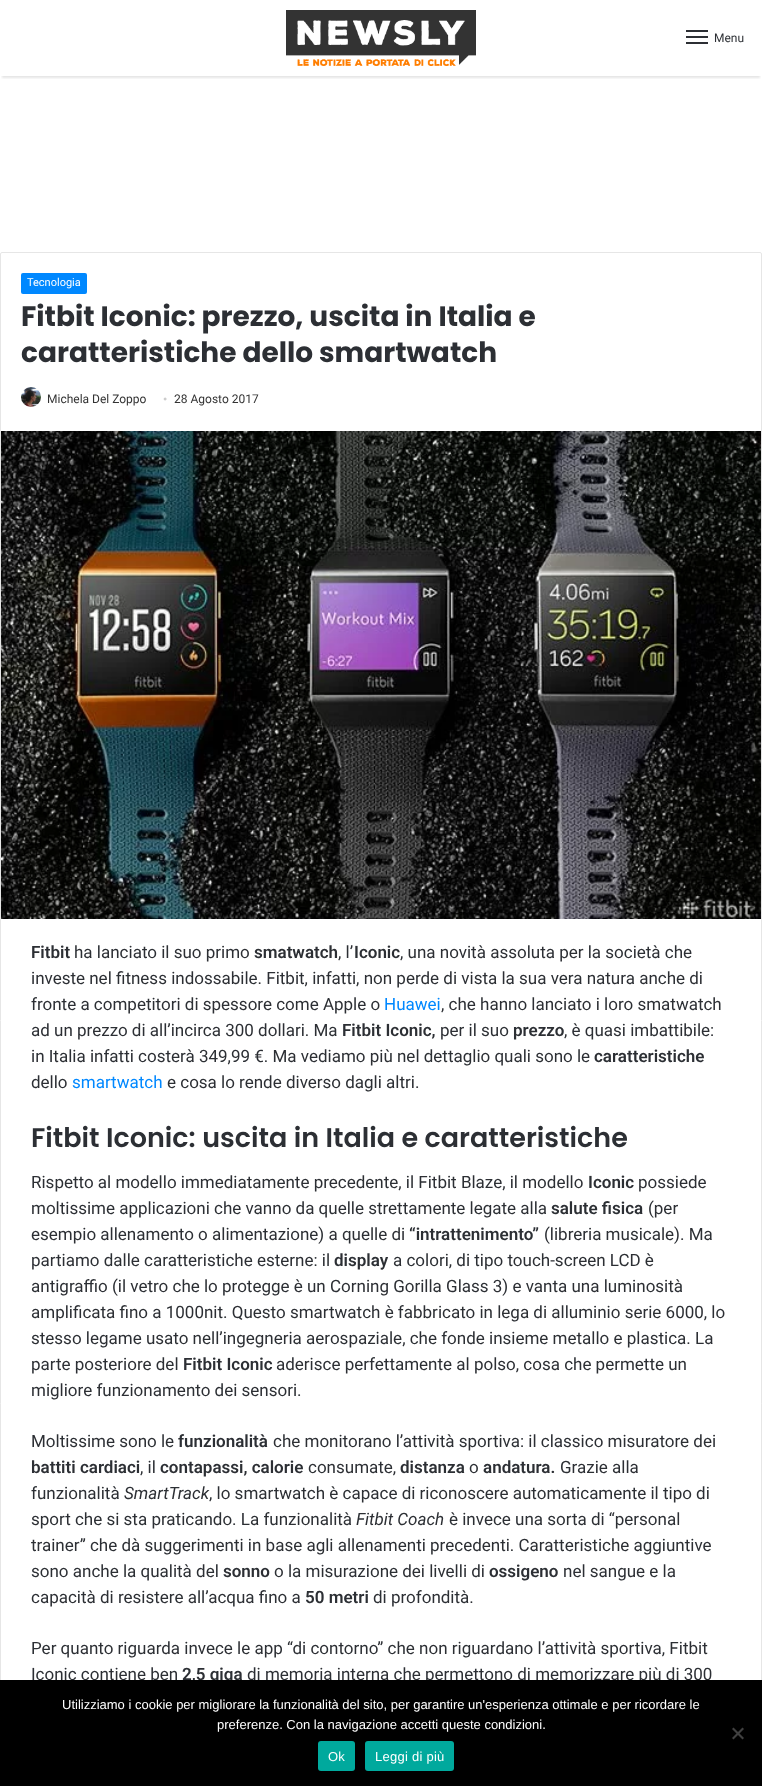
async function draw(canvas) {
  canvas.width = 762
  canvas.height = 1786
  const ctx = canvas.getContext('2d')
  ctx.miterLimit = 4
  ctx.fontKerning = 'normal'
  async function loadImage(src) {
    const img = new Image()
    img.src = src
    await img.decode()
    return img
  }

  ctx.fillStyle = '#fff'
  ctx.fillRect(0, 0, 762, 1786)
  ctx.save()
  ctx.beginPath()
  ctx.rect(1, 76, 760, 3)
  ctx.clip()
  ctx.fillStyle = '#0000001a'
  ctx.filter = 'blur(1px)'
  ctx.beginPath()
  ctx.rect(2, 6, 758, 72)
  ctx.fill()
  ctx.filter = 'none'
  ctx.restore()
  ctx.drawImage(await loadImage('image0.png'), 286, 10, 190, 56)
  ctx.fillStyle = '#2c2f34'
  ctx.fillRect(686, 36, 22, 2)
  ctx.fillRect(686, 30, 22, 2)
  ctx.fillRect(686, 42, 22, 2)
  ctx.font = '12px Roboto'
  ctx.fillText('Menu', 714, 42)
  ctx.beginPath()
  ctx.roundRect(0.5, 252.5, 761, 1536, 1.5)
  ctx.strokeStyle = '#e6e6e6'
  ctx.stroke()
  ctx.fillStyle = '#08f'
  ctx.beginPath()
  ctx.roundRect(21, 273, 66, 21, 2)
  ctx.fill()
  ctx.font = '11px Roboto'
  ctx.fillStyle = '#fff'
  ctx.fillText('Tecnologia', 27, 286)
  ctx.font = 'bold 28px Poppins'
  ctx.fillStyle = '#2c2f34'
  ctx.fillText('Fitbit Iconic: prezzo, uscita in Italia e', 21, 326)
  ctx.fillText('caratteristiche dello smartwatch', 21, 362)
  ctx.drawImage(await loadImage('image1.png'), 21, 387, 20, 20)
  ctx.font = '12px Roboto'
  ctx.fillStyle = '#333'
  ctx.fillText('Michela Del Zoppo', 47, 403)
  ctx.font = '12px Liberation Serif'
  ctx.fillStyle = '#ccc'
  ctx.fillText('•', 163, 403)
  ctx.font = '12px Roboto'
  ctx.fillStyle = '#333'
  ctx.fillText('28 Agosto 2017', 174, 403)
  ctx.drawImage(await loadImage('image2.png'), 1, 431, 760, 488)
  ctx.font = '600 17px Roboto'
  ctx.fillStyle = '#2c2f34'
  ctx.fillText('Fitbit', 31, 958)
  ctx.font = '17px Roboto'
  ctx.fillText('ha lanciato il suo primo', 74, 958)
  ctx.font = '600 17px Roboto'
  ctx.fillText('smatwatch', 254, 958)
  ctx.font = '17px Roboto'
  ctx.fillText(', l’', 338, 958)
  ctx.font = '600 17px Roboto'
  ctx.fillText('Iconic', 354, 958)
  ctx.font = '17px Roboto'
  ctx.fillText(', una novità assoluta per la società che', 400, 958)
  ctx.fillText('investe nel fitness indossabile. Fitbit, infatti, non perde di vista la sua vera natura anche di', 31, 984)
  ctx.fillText('fronte a competitori di spessore come Apple o', 31, 1010)
  ctx.fillStyle = '#08f'
  ctx.fillText('Huawei', 384, 1010)
  ctx.fillStyle = '#2c2f34'
  ctx.fillText(', che hanno lanciato i loro smatwatch', 441, 1010)
  ctx.fillText('ad un prezzo di all’incirca 300 dollari. Ma', 31, 1036)
  ctx.font = '600 17px Roboto'
  ctx.fillText('Fitbit Iconic,', 342, 1036)
  ctx.font = '17px Roboto'
  ctx.fillText('per il suo', 440, 1036)
  ctx.font = '600 17px Roboto'
  ctx.fillText('prezzo', 513, 1036)
  ctx.font = '17px Roboto'
  ctx.fillText(', è quasi imbattibile:', 564, 1036)
  ctx.fillText('in Italia infatti costerà 349,99 €. Ma vediamo più nel dettaglio quali sono le', 31, 1062)
  ctx.font = '600 17px Roboto'
  ctx.fillText('caratteristiche', 594, 1062)
  ctx.font = '17px Roboto'
  ctx.fillText('dello', 31, 1088)
  ctx.fillStyle = '#08f'
  ctx.fillText('smartwatch', 72, 1088)
  ctx.fillStyle = '#2c2f34'
  ctx.fillText('e cosa lo rende diverso dagli altri.', 167, 1088)
  ctx.font = '600 27px Poppins'
  ctx.fillText('Fitbit Iconic: uscita in Italia e caratteristiche', 31, 1147)
  ctx.font = '17px Roboto'
  ctx.fillText('Rispetto al modello immediatamente precedente, il Fitbit Blaze, il modello', 31, 1188)
  ctx.font = '600 17px Roboto'
  ctx.fillText('Iconic', 588, 1188)
  ctx.font = '17px Roboto'
  ctx.fillText('possiede', 638, 1188)
  ctx.fillText('moltissime applicazioni che vanno da quelle strettamente legate alla', 31, 1214)
  ctx.font = '600 17px Roboto'
  ctx.fillText('salute fisica', 551, 1214)
  ctx.font = '17px Roboto'
  ctx.fillText('(per', 648, 1214)
  ctx.fillText('esempio allenamento o alimentazione) a quelle di', 31, 1240)
  ctx.font = '600 17px Roboto'
  ctx.fillText('“intrattenimento”', 409, 1240)
  ctx.font = '17px Roboto'
  ctx.fillText('(libreria musicale). Ma', 544, 1240)
  ctx.fillText('partiamo dalle caratteristiche esterne: il', 31, 1266)
  ctx.font = '600 17px Roboto'
  ctx.fillText('display', 334, 1266)
  ctx.font = '17px Roboto'
  ctx.fillText('a colori, di tipo touch-screen LCD è', 393, 1266)
  ctx.fillText('antigraffio (il vetro che lo protegge è un Corning Gorilla Glass 3) e vanta una luminosità', 31, 1292)
  ctx.fillText('amplificata fino a 1000nit. Questo smartwatch è fabbricato in lega di alluminio serie 6000, lo', 31, 1318)
  ctx.fillText('stesso legame usato nell’ingegneria aerospaziale, che fonde insieme metallo e plastica. La', 31, 1344)
  ctx.fillText('parte posteriore del', 31, 1370)
  ctx.font = '600 17px Roboto'
  ctx.fillText('Fitbit Iconic', 183, 1370)
  ctx.font = '17px Roboto'
  ctx.fillText('aderisce perfettamente al polso, cosa che permette un', 276, 1370)
  ctx.fillText('migliore funzionamento dei sensori.', 31, 1396)
  ctx.fillText('Moltissime sono le', 31, 1447)
  ctx.font = '600 17px Roboto'
  ctx.fillText('funzionalità', 178, 1447)
  ctx.font = '17px Roboto'
  ctx.fillText('che monitorano l’attività sportiva: il classico misuratore dei', 273, 1447)
  ctx.font = '600 17px Roboto'
  ctx.fillText('battiti cardiaci', 31, 1473)
  ctx.font = '17px Roboto'
  ctx.fillText(', il', 140, 1473)
  ctx.font = '600 17px Roboto'
  ctx.fillText('contapassi, calorie', 160, 1473)
  ctx.font = '17px Roboto'
  ctx.fillText('consumate,', 308, 1473)
  ctx.font = '600 17px Roboto'
  ctx.fillText('distanza', 400, 1473)
  ctx.font = '17px Roboto'
  ctx.fillText('o', 469, 1473)
  ctx.font = '600 17px Roboto'
  ctx.fillText('andatura.', 483, 1473)
  ctx.font = '17px Roboto'
  ctx.fillText('Grazie alla', 560, 1473)
  ctx.fillText('funzionalità', 31, 1499)
  ctx.font = 'italic 17px Roboto'
  ctx.fillText('SmartTrack', 124, 1499)
  ctx.font = '17px Roboto'
  ctx.fillText(', lo smartwatch è capace di riconoscere automaticamente il tipo di', 209, 1499)
  ctx.fillText('sport che si sta praticando. La funzionalità', 31, 1525)
  ctx.font = 'italic 17px Roboto'
  ctx.fillText('Fitbit Coach', 356, 1525)
  ctx.font = '17px Roboto'
  ctx.fillText('è invece una sorta di “personal', 449, 1525)
  ctx.fillText('trainer” che dà suggerimenti in base agli allenamenti precedenti. Caratteristiche aggiuntive', 31, 1551)
  ctx.fillText('sono anche la qualità del', 31, 1577)
  ctx.font = '600 17px Roboto'
  ctx.fillText('sonno', 223, 1577)
  ctx.font = '17px Roboto'
  ctx.fillText('o la misurazione dei livelli di', 274, 1577)
  ctx.font = '600 17px Roboto'
  ctx.fillText('ossigeno', 489, 1577)
  ctx.font = '17px Roboto'
  ctx.fillText('nel sangue e la', 563, 1577)
  ctx.fillText('capacità di resistere all’acqua fino a', 31, 1603)
  ctx.font = '600 17px Roboto'
  ctx.fillText('50 metri', 305, 1603)
  ctx.font = '17px Roboto'
  ctx.fillText('di profondità.', 373, 1603)
  ctx.fillText('Per quanto riguarda invece le app “di contorno” che non riguardano l’attività sportiva, Fitbit', 31, 1654)
  ctx.fillText('Iconic contiene ben', 31, 1680)
  ctx.font = '600 17px Roboto'
  ctx.fillText('2,5 giga', 182, 1680)
  ctx.font = '17px Roboto'
  ctx.fillText('di memoria interna che permettono di memorizzare più di 300', 247, 1680)
  ctx.fillStyle = '#000'
  ctx.fillRect(0, 1680, 762, 106)
  ctx.font = '13px Liberation Sans'
  ctx.fillStyle = '#fff'
  ctx.fillText('Utilizziamo i cookie per migliorare la funzionalità del sito, per garantire un\'esperienza ottimale e per ricordare le', 62, 1709)
  ctx.fillText('preferenze. Con la navigazione accetti queste condizioni.', 217, 1729)
  ctx.fillStyle = '#404040'
  ctx.beginPath()
  ctx.moveTo(742.5, 1727.5)
  ctx.lineTo(744, 1729)
  ctx.lineTo(733.5, 1739.5)
  ctx.lineTo(732, 1738)
  ctx.closePath()
  ctx.fill()
  ctx.beginPath()
  ctx.moveTo(732, 1729)
  ctx.lineTo(733.5, 1727.5)
  ctx.lineTo(744, 1738)
  ctx.lineTo(742.5, 1739.5)
  ctx.closePath()
  ctx.fill()
  ctx.fillStyle = '#00a99d'
  ctx.beginPath()
  ctx.roundRect(318, 1741, 37, 30, 3)
  ctx.fill()
  ctx.letterSpacing = '0.25px'
  ctx.fillStyle = '#fff'
  ctx.fillText('Ok', 328, 1761)
  ctx.fillStyle = '#00a99d'
  ctx.beginPath()
  ctx.roundRect(365, 1741, 89, 30, 3)
  ctx.fill()
  ctx.fillStyle = '#fff'
  ctx.fillText('Leggi di più', 375, 1761)
}

draw(document.querySelector('canvas'))
